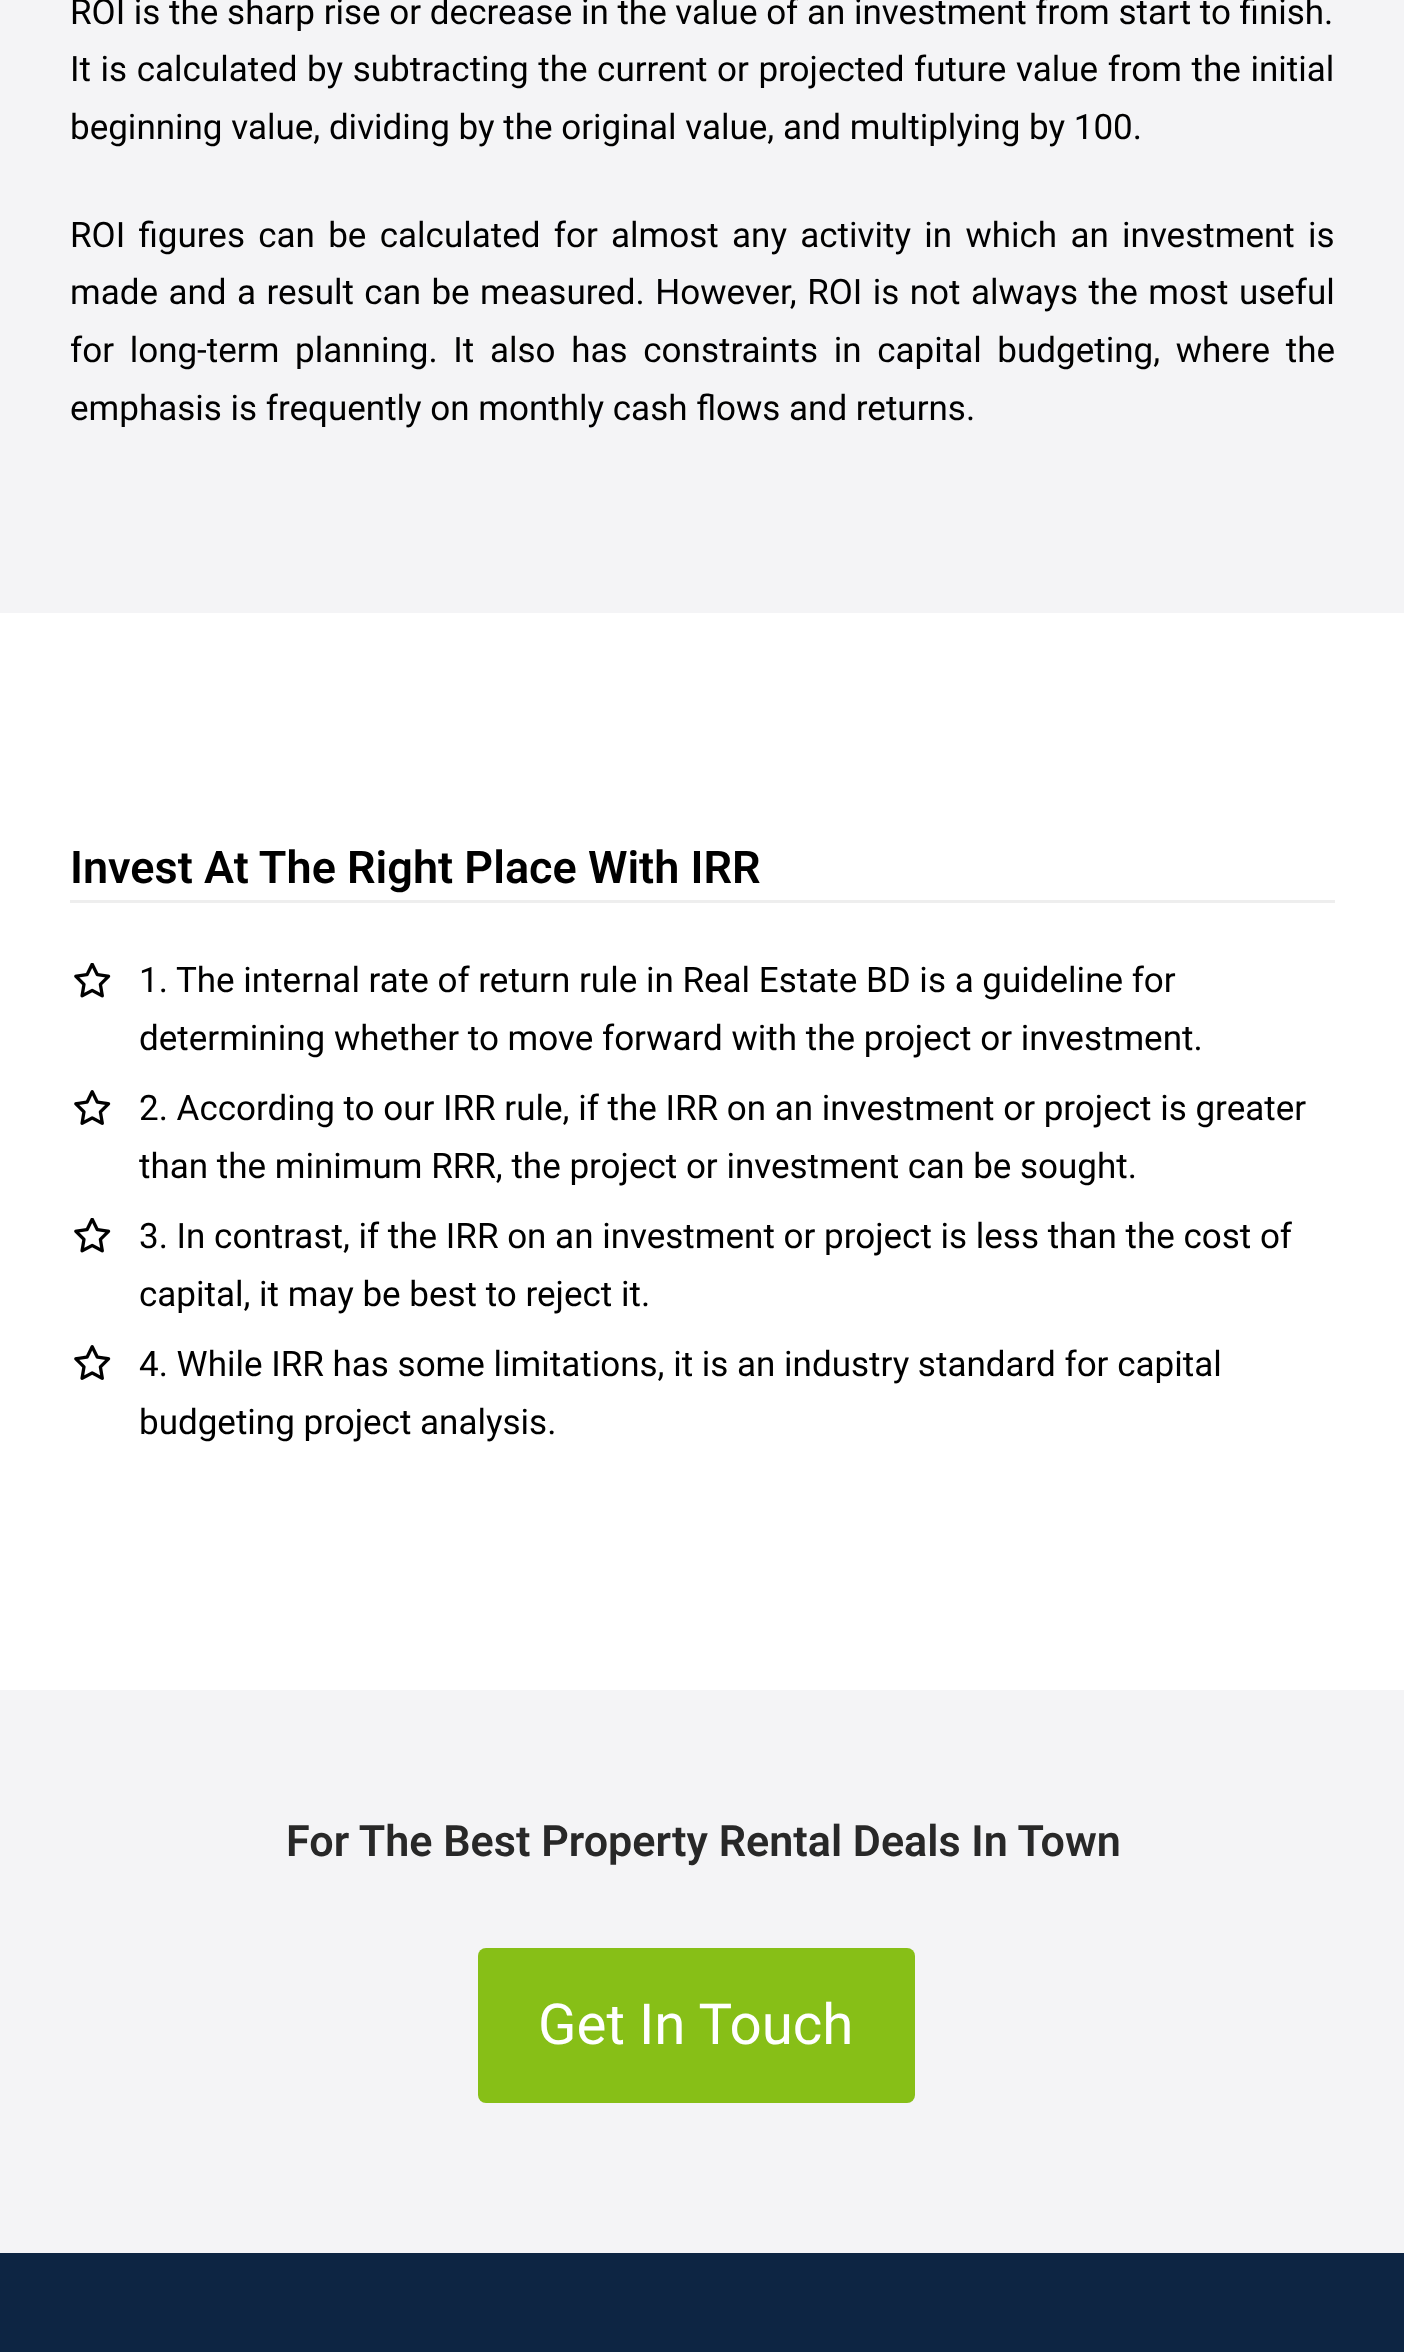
async function draw(canvas) {
  canvas.width = 1404
  canvas.height = 2352
  const ctx = canvas.getContext('2d')
  ctx.miterLimit = 4
  ctx.fontKerning = 'normal'
  async function loadImage(src) {
    const img = new Image()
    img.src = src
    await img.decode()
    return img
  }

  ctx.fillStyle = '#fff'
  ctx.fillRect(0, 0, 1404, 2352)
  ctx.fillStyle = '#f4f4f6'
  ctx.fillRect(0, 0, 1404, 613)
  ctx.font = '35px Roboto'
  ctx.fillStyle = '#000'
  ctx.fillText('ROI is the sharp rise or decrease in the value of an investment from start to finish.', 70, 24)
  ctx.wordSpacing = '0.9px'
  ctx.fillText('It is calculated by subtracting the current or projected future value from the initial', 70, 81)
  ctx.wordSpacing = '0px'
  ctx.fillText('beginning value, dividing by the original value, and multiplying by 100.', 70, 139)
  ctx.wordSpacing = '4.6px'
  ctx.fillText('ROI figures can be calculated for almost any activity in which an investment is', 70, 247)
  ctx.wordSpacing = '1.75px'
  ctx.fillText('made and a result can be measured. However, ROI is not always the most useful', 70, 304)
  ctx.wordSpacing = '7px'
  ctx.fillText('for long-term planning. It also has constraints in capital budgeting, where the', 70, 362)
  ctx.wordSpacing = '0px'
  ctx.fillText('emphasis is frequently on monthly cash flows and returns.', 70, 420)
  ctx.fillStyle = '#eee'
  ctx.fillRect(70, 900, 1265, 3)
  ctx.font = '600 45px Roboto'
  ctx.fillStyle = '#000'
  ctx.fillText('Invest At The Right Place With IRR', 70, 883)
  ctx.drawImage(await loadImage('image0.png'), 74, 963, 37, 35)
  ctx.font = '35px Roboto'
  ctx.fillText('1. The internal rate of return rule in Real Estate BD is a guideline for', 139, 992)
  ctx.fillText('determining whether to move forward with the project or investment.', 139, 1050)
  ctx.drawImage(await loadImage('image1.png'), 74, 1090, 37, 35)
  ctx.fillText('2. According to our IRR rule, if the IRR on an investment or project is greater', 139, 1120)
  ctx.fillText('than the minimum RRR, the project or investment can be sought.', 139, 1178)
  ctx.drawImage(await loadImage('image0.png'), 74, 1218, 37, 35)
  ctx.fillText('3. In contrast, if the IRR on an investment or project is less than the cost of', 139, 1248)
  ctx.fillText('capital, it may be best to reject it.', 139, 1306)
  ctx.drawImage(await loadImage('image1.png'), 74, 1345, 37, 35)
  ctx.fillText('4. While IRR has some limitations, it is an industry standard for capital', 139, 1376)
  ctx.fillText('budgeting project analysis.', 139, 1434)
  ctx.fillStyle = '#f4f4f6'
  ctx.fillRect(0, 1690, 1404, 563)
  ctx.font = '600 43.1px Roboto'
  ctx.fillStyle = '#282828'
  ctx.fillText('For The Best Property Rental Deals In Town', 286, 1856)
  ctx.fillStyle = '#87bf17'
  ctx.beginPath()
  ctx.roundRect(478, 1948, 437, 155, 8)
  ctx.fill()
  ctx.font = '56.5px Roboto'
  ctx.fillStyle = '#fff'
  ctx.fillText('Get In Touch', 538, 2044)
  ctx.fillStyle = '#0d2543'
  ctx.fillRect(0, 2253, 1404, 99)
}

draw(document.querySelector('canvas'))
